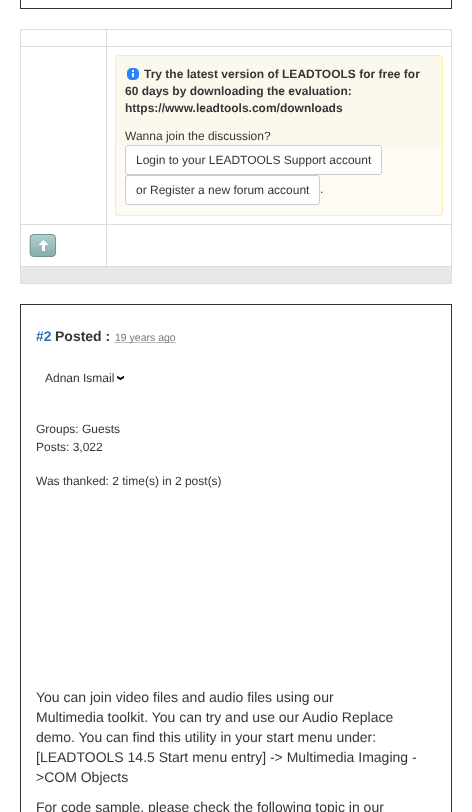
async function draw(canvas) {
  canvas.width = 472
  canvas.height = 812
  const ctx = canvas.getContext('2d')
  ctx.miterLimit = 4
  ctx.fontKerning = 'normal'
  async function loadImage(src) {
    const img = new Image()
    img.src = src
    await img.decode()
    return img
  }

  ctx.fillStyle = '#fff'
  ctx.fillRect(0, 0, 472, 812)
  ctx.strokeStyle = '#333'
  ctx.strokeRect(20.5, -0.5, 431, 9)
  ctx.fillStyle = '#ddd'
  ctx.fillRect(20, 29, 432, 1)
  ctx.fillRect(451, 29, 1, 255)
  ctx.fillRect(20, 283, 432, 1)
  ctx.fillRect(20, 29, 1, 255)
  ctx.fillRect(106, 46, 346, 1)
  ctx.fillRect(106, 224, 346, 1)
  ctx.fillRect(20, 266, 432, 1)
  ctx.fillRect(106, 224, 1, 43)
  ctx.fillRect(20, 224, 87, 1)
  ctx.fillRect(106, 46, 1, 179)
  ctx.fillRect(20, 46, 87, 1)
  ctx.fillRect(106, 29, 1, 18)
  ctx.fillStyle = '#fbf9ee'
  ctx.beginPath()
  ctx.roundRect(115, 55, 328, 161, 4)
  ctx.fill()
  ctx.fillStyle = '#fdfbf4'
  ctx.fillRect(115, 146, 328, 70)
  ctx.beginPath()
  ctx.roundRect(115.5, 55.5, 327, 160, 3.5)
  ctx.strokeStyle = '#fcefa1'
  ctx.stroke()
  ctx.drawImage(await loadImage('image0.png'), 127, 68, 12, 12)
  ctx.font = 'bold 12px Liberation Sans'
  ctx.fillStyle = '#363636'
  ctx.fillText('Try the latest version of LEADTOOLS for free for', 144, 78)
  ctx.fillText('60 days by downloading the evaluation:', 125, 95)
  ctx.fillText('https://www.leadtools.com/downloads', 125, 112)
  ctx.font = '12px Liberation Sans'
  ctx.fillText('Wanna join the discussion?', 125, 140)
  ctx.fillStyle = '#fff'
  ctx.beginPath()
  ctx.roundRect(125.5, 145.5, 256, 29, 2.5)
  ctx.fill()
  ctx.strokeStyle = '#ccc'
  ctx.stroke()
  ctx.fillStyle = '#363636'
  ctx.fillText('Login to your LEADTOOLS Support account', 136, 164)
  ctx.fillStyle = '#fff'
  ctx.beginPath()
  ctx.roundRect(125.5, 175.5, 194, 29, 2.5)
  ctx.fill()
  ctx.stroke()
  ctx.fillStyle = '#363636'
  ctx.fillText('or Register a new forum account', 136, 194)
  ctx.fillText('.', 320, 193)
  ctx.drawImage(await loadImage('image1.png'), 29, 234, 27, 23)
  ctx.fillStyle = '#e8e8e8'
  ctx.fillRect(21, 267, 430, 16)
  ctx.strokeStyle = '#333'
  ctx.strokeRect(20.5, 304.5, 431, 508)
  ctx.font = 'bold 14px Liberation Sans'
  ctx.fillStyle = '#386cb8'
  ctx.fillText('#2', 36, 341)
  ctx.fillStyle = '#363636'
  ctx.fillText('Posted :', 55, 341)
  ctx.beginPath()
  ctx.moveTo(114.5, 342.5)
  ctx.lineTo(175.5, 342.5)
  ctx.strokeStyle = '#777'
  ctx.setLineDash([1, 1])
  ctx.stroke()
  ctx.font = '10.5px Liberation Sans'
  ctx.fillStyle = '#777'
  ctx.fillText('19 years ago', 115, 341)
  ctx.font = '12px Liberation Sans'
  ctx.fillStyle = '#363636'
  ctx.fillText('Adnan Ismail', 45, 382)
  ctx.drawImage(await loadImage('image2.png'), 117, 376, 8, 4)
  ctx.fillText('Groups: Guests', 36, 433)
  ctx.fillText('Posts: 3,022', 36, 451)
  ctx.fillText('Was thanked: 2 time(s) in 2 post(s)', 36, 485)
  ctx.font = '14px Liberation Sans'
  ctx.fillText('You can join video files and audio files using our', 36, 702)
  ctx.fillText('Multimedia toolkit. You can try and use our Audio Replace', 36, 722)
  ctx.fillText('demo. You can find this utility in your start menu under:', 36, 742)
  ctx.fillText('[LEADTOOLS 14.5 Start menu entry] -> Multimedia Imaging -', 36, 762)
  ctx.fillText('>COM Objects', 36, 782)
  ctx.fillText('For code sample, please check the following topic in our', 36, 812)
}

draw(document.querySelector('canvas'))
